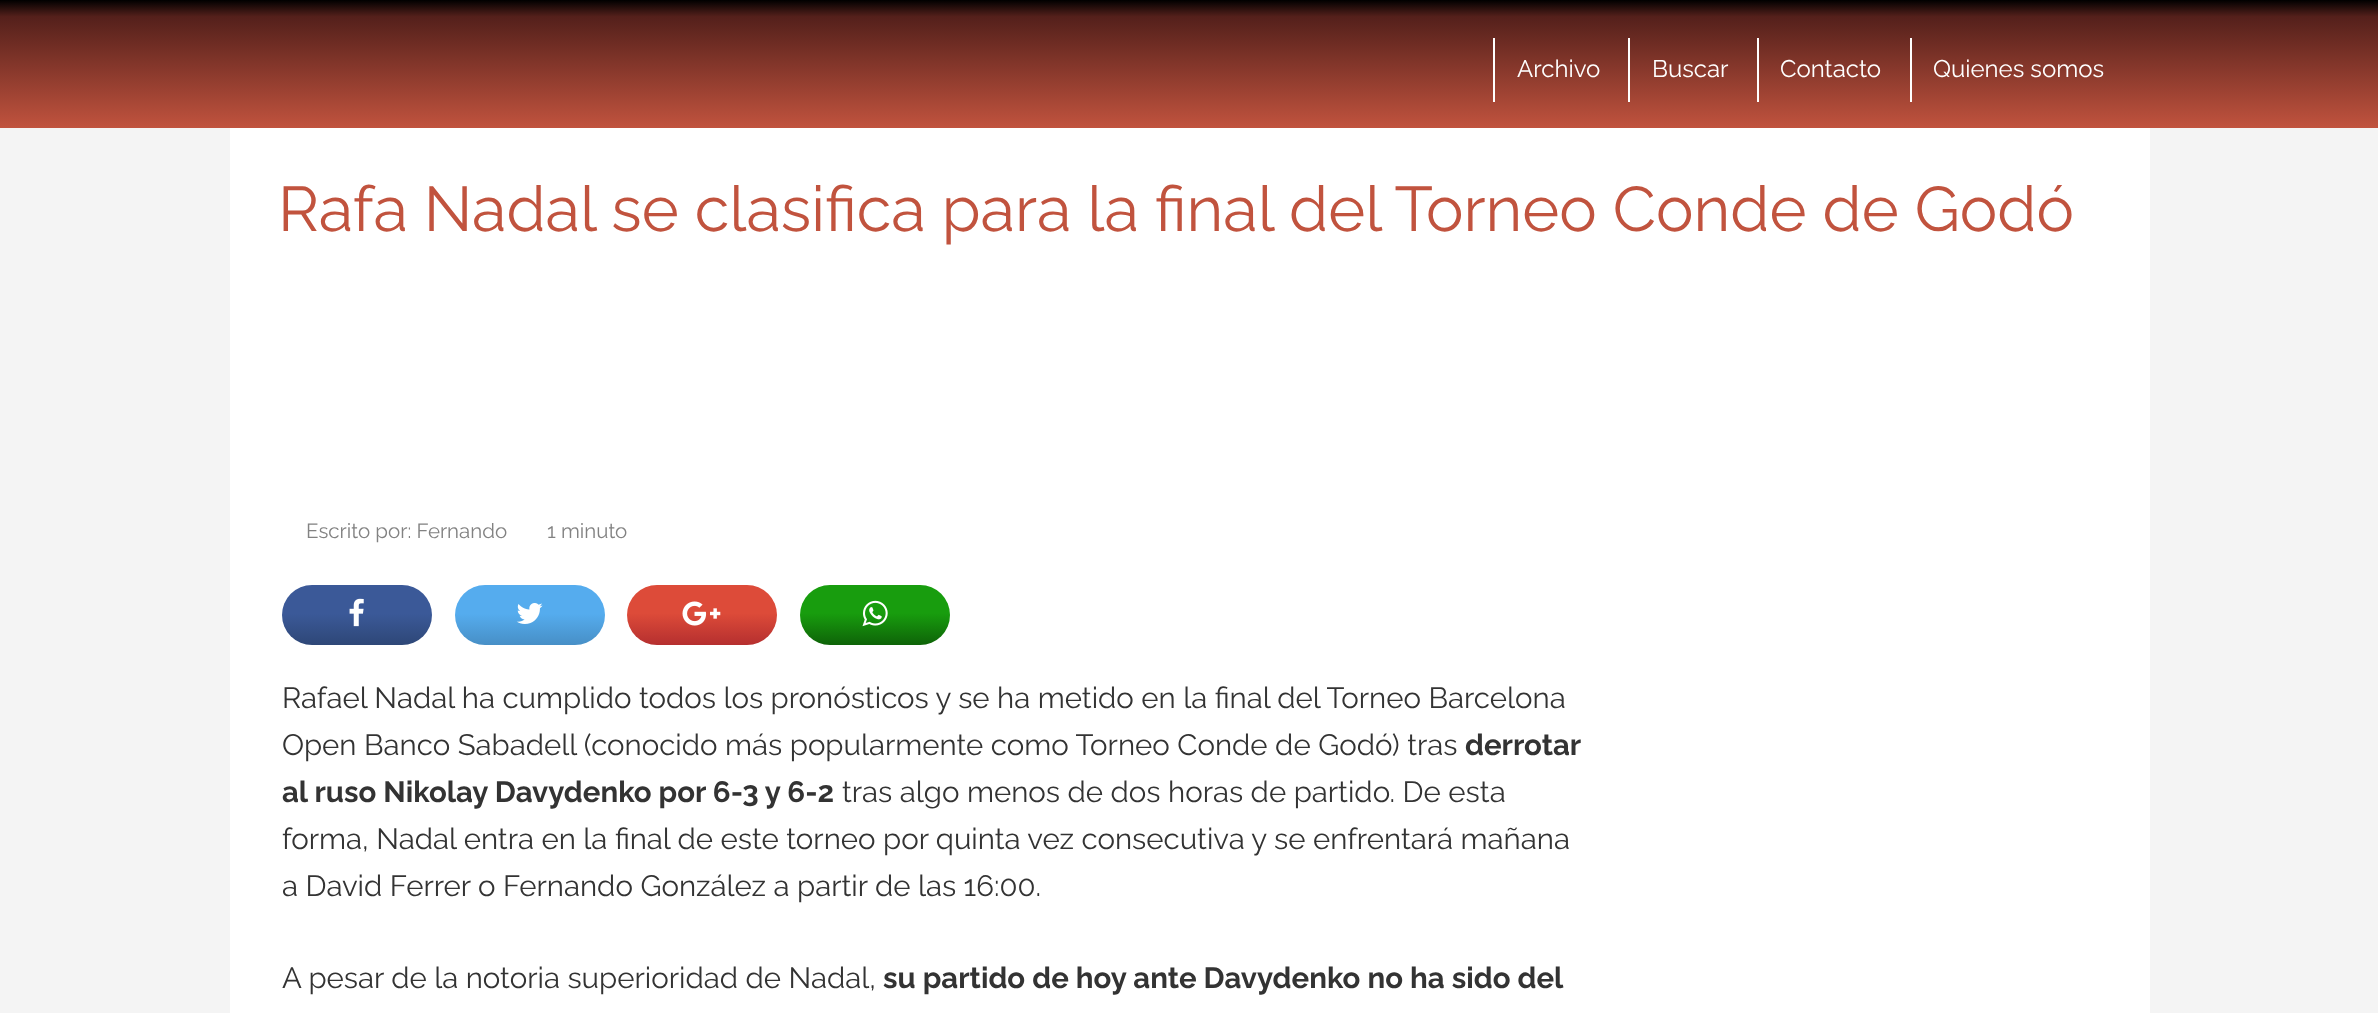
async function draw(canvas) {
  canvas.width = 2378
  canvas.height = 1013
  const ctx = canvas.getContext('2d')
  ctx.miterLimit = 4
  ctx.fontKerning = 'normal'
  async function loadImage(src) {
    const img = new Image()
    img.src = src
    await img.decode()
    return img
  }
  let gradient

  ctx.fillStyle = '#f4f4f4'
  ctx.fillRect(0, 0, 2378, 1013)
  gradient = ctx.createLinearGradient(1190, 0, 1190, 128)
  gradient.addColorStop(0, '#000')
  gradient.addColorStop(0.13, '#54201b')
  gradient.addColorStop(1, '#c1533e')
  ctx.fillStyle = gradient
  ctx.fillRect(0, 0, 2378, 128)
  ctx.fillStyle = '#fff'
  ctx.fillRect(1493, 38, 2, 64)
  ctx.font = '24px Raleway'
  ctx.fillText('Archivo', 1517, 77)
  ctx.fillRect(1628, 38, 2, 64)
  ctx.fillText('Buscar', 1652, 77)
  ctx.fillRect(1757, 38, 2, 64)
  ctx.fillText('Contacto', 1780, 77)
  ctx.fillRect(1910, 38, 2, 64)
  ctx.fillText('Quienes somos', 1933, 77)
  ctx.fillRect(230, 128, 1920, 885)
  ctx.font = '63px Raleway'
  ctx.fillStyle = '#c1533e'
  ctx.fillText('Rafa Nadal se clasifica para la final del Torneo Conde de Godó', 278, 231)
  ctx.font = '20.5px Raleway'
  ctx.fillStyle = '#828282'
  ctx.fillText('Escrito por: Fernando', 306, 538)
  ctx.fillText('1 minuto', 547, 538)
  gradient = ctx.createLinearGradient(357, 585, 357, 645)
  gradient.addColorStop(0, '#3b5998')
  gradient.addColorStop(0.48, '#3b5998')
  gradient.addColorStop(1, '#2e4777')
  ctx.fillStyle = gradient
  ctx.beginPath()
  ctx.roundRect(282, 585, 150, 60, 30)
  ctx.fill()
  ctx.drawImage(await loadImage('image0.png'), 349, 598, 15, 29)
  gradient = ctx.createLinearGradient(530, 585, 530, 645)
  gradient.addColorStop(0, '#55acee')
  gradient.addColorStop(0.48, '#55acee')
  gradient.addColorStop(1, '#478fc6')
  ctx.fillStyle = gradient
  ctx.beginPath()
  ctx.roundRect(455, 585, 150, 60, 30)
  ctx.fill()
  ctx.drawImage(await loadImage('image1.png'), 516, 603, 27, 21)
  gradient = ctx.createLinearGradient(702, 585, 702, 645)
  gradient.addColorStop(0, '#dd4b39')
  gradient.addColorStop(0.47, '#dd4b39')
  gradient.addColorStop(1, '#b52f2f')
  ctx.fillStyle = gradient
  ctx.beginPath()
  ctx.roundRect(627, 585, 150, 60, 30)
  ctx.fill()
  ctx.drawImage(await loadImage('image2.png'), 682, 601, 39, 25)
  gradient = ctx.createLinearGradient(875, 585, 875, 645)
  gradient.addColorStop(0, '#189d0e')
  gradient.addColorStop(0.47, '#189d0e')
  gradient.addColorStop(1, '#0e6308')
  ctx.fillStyle = gradient
  ctx.beginPath()
  ctx.roundRect(800, 585, 150, 60, 30)
  ctx.fill()
  ctx.drawImage(await loadImage('image3.png'), 862, 600, 26, 27)
  ctx.font = '29.4px Raleway'
  ctx.fillStyle = '#333'
  ctx.fillText('Rafael Nadal ha cumplido todos los pronósticos y se ha metido en la final del Torneo Barcelona', 282, 708)
  ctx.fillText('Open Banco Sabadell (conocido más popularmente como Torneo Conde de Godó) tras', 282, 755)
  ctx.font = 'bold 29.4px Raleway'
  ctx.fillText('derrotar', 1465, 755)
  ctx.fillText('al ruso Nikolay Davydenko por 6-3 y 6-2', 282, 802)
  ctx.font = '29.4px Raleway'
  ctx.fillText('tras algo menos de dos horas de partido. De esta', 842, 802)
  ctx.fillText('forma, Nadal entra en la final de este torneo por quinta vez consecutiva y se enfrentará mañana', 282, 849)
  ctx.fillText('a David Ferrer o Fernando González a partir de las 16:00.', 282, 896)
  ctx.fillText('A pesar de la notoria superioridad de Nadal,', 282, 988)
  ctx.font = 'bold 29.4px Raleway'
  ctx.fillText('su partido de hoy ante Davydenko no ha sido del', 883, 988)
}

draw(document.querySelector('canvas'))
